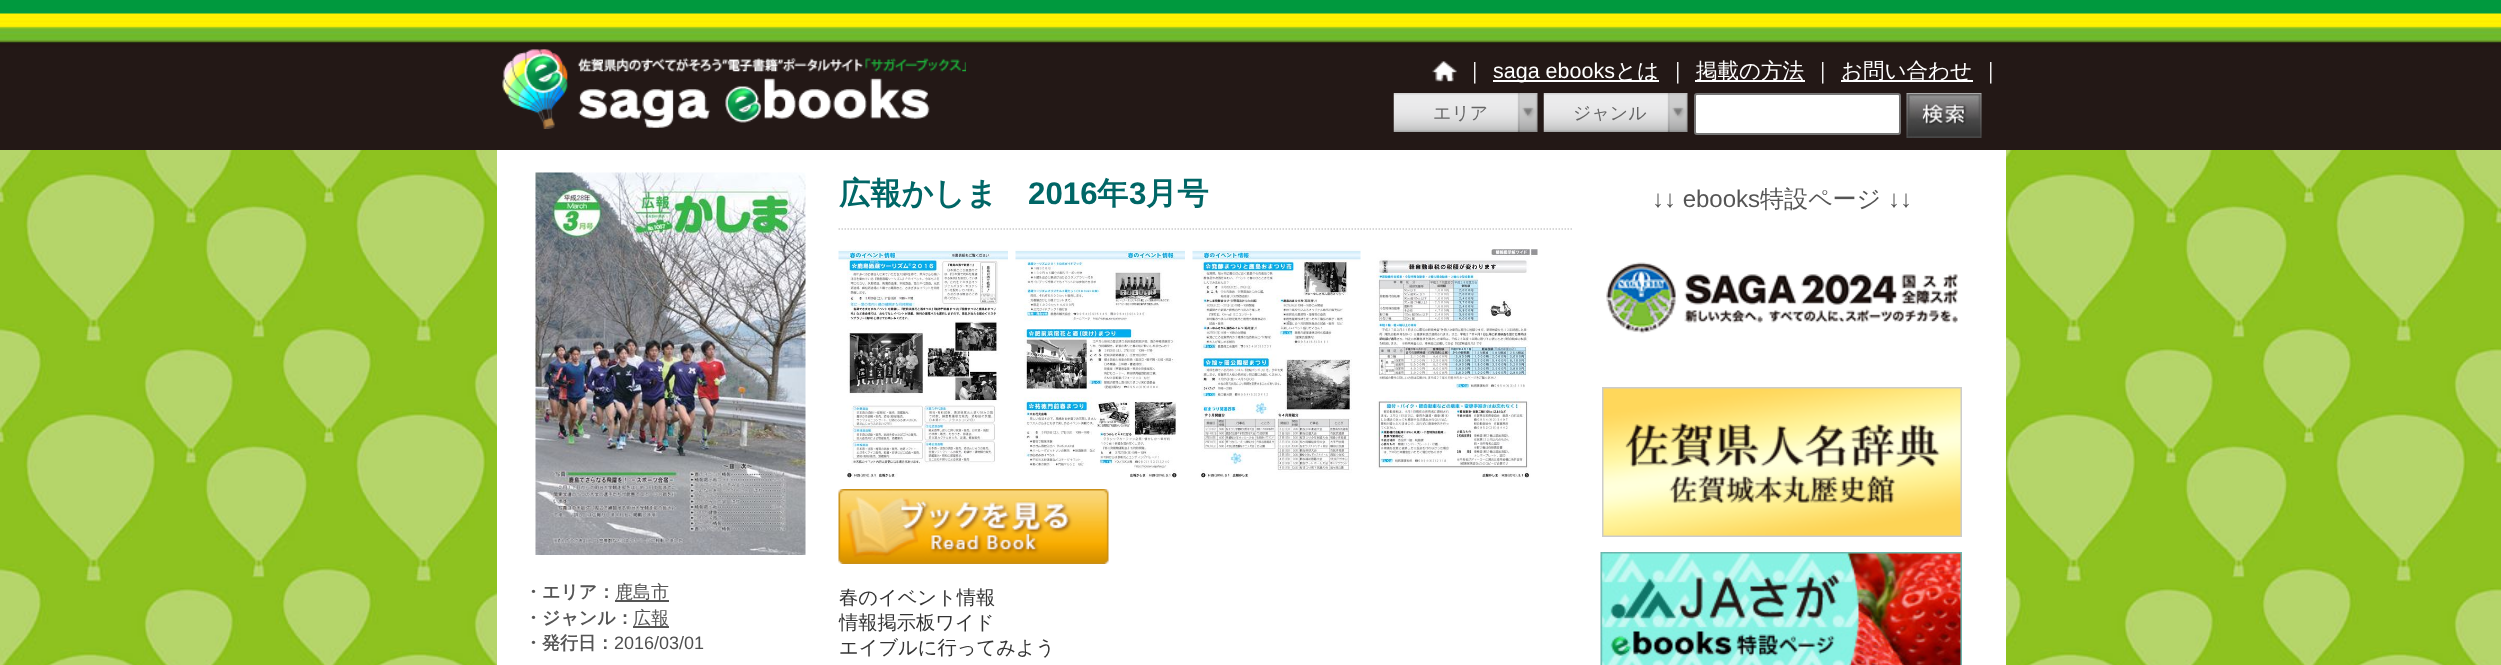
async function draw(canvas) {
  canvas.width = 2501
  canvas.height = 665
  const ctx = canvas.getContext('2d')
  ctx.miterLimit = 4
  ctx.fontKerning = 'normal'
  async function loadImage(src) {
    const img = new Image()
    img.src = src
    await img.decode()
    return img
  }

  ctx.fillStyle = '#fff'
  ctx.fillRect(0, 0, 2501, 665)
  ctx.drawImage(await loadImage('image0.png'), 0, 150, 2501, 515)
  ctx.drawImage(await loadImage('image1.png'), 0, 0, 2501, 150)
  ctx.drawImage(await loadImage('image2.png'), 502, 49, 464, 80)
  ctx.drawImage(await loadImage('image3.png'), 1432, 61, 25, 21)
  ctx.font = '500 21.5px WenQuanYi Zen Hei'
  ctx.fillText('｜', 1464, 78)
  ctx.fillRect(1493, 80, 166, 2)
  ctx.font = '21.5px Liberation Sans'
  ctx.fillText('saga ebooks', 1493, 78)
  ctx.font = '500 21.5px WenQuanYi Zen Hei'
  ctx.fillText('とは', 1615, 78)
  ctx.fillText('｜', 1667, 78)
  ctx.fillRect(1695, 80, 110, 2)
  ctx.fillText('掲載の方法', 1696, 78)
  ctx.fillText('｜', 1812, 78)
  ctx.fillRect(1841, 80, 132, 2)
  ctx.fillText('お問い合わせ', 1841, 78)
  ctx.fillText('｜', 1980, 78)
  ctx.drawImage(await loadImage('image4.png'), 1393, 93, 145, 39)
  ctx.font = '500 18px WenQuanYi Zen Hei'
  ctx.fillStyle = '#666'
  ctx.fillText('エリア', 1433, 119)
  ctx.drawImage(await loadImage('image5.png'), 1543, 93, 145, 39)
  ctx.fillText('ジャンル', 1573, 119)
  ctx.fillStyle = '#fff'
  ctx.beginPath()
  ctx.roundRect(1695, 94, 205, 40, 2)
  ctx.fill()
  ctx.strokeStyle = '#767676'
  ctx.lineWidth = 2
  ctx.stroke()
  ctx.drawImage(await loadImage('image6.png'), 1906, 93, 76, 45)
  ctx.fillRect(497, 150, 1509, 515)
  ctx.drawImage(await loadImage('image7.png'), 535, 172, 271, 383)
  ctx.font = 'bold 18px WenQuanYi Zen Hei'
  ctx.fillStyle = '#555'
  ctx.fillText('・エリア：', 524, 598)
  ctx.fillRect(615, 600, 54, 2)
  ctx.font = '500 18px WenQuanYi Zen Hei'
  ctx.fillText('鹿島市', 615, 598)
  ctx.font = 'bold 18px WenQuanYi Zen Hei'
  ctx.fillText('・ジャンル：', 524, 624)
  ctx.fillRect(633, 626, 36, 2)
  ctx.font = '500 18px WenQuanYi Zen Hei'
  ctx.fillText('広報', 633, 624)
  ctx.font = 'bold 18px WenQuanYi Zen Hei'
  ctx.fillText('・発行日：', 524, 649)
  ctx.font = '18px Liberation Sans'
  ctx.fillStyle = '#4f4f4f'
  ctx.fillText('2016/03/01', 614, 649)
  ctx.beginPath()
  ctx.moveTo(838.5, 229)
  ctx.lineTo(1573.5, 229)
  ctx.strokeStyle = '#ccc'
  ctx.lineWidth = 1.5
  ctx.setLineDash([1.5, 1.5])
  ctx.stroke()
  ctx.font = 'bold 31.25px WenQuanYi Zen Hei'
  ctx.fillStyle = '#066'
  ctx.fillText('広報かしま', 839, 204)
  ctx.font = 'bold 31.25px Liberation Sans'
  ctx.fillText('2016', 1028, 204)
  ctx.font = 'bold 31.25px WenQuanYi Zen Hei'
  ctx.fillText('年', 1097, 204)
  ctx.font = 'bold 31.25px Liberation Sans'
  ctx.fillText('3', 1129, 204)
  ctx.font = 'bold 31.25px WenQuanYi Zen Hei'
  ctx.fillText('月号', 1146, 204)
  ctx.drawImage(await loadImage('image8.png'), 838, 249, 170, 229)
  ctx.drawImage(await loadImage('image9.png'), 1015, 249, 170, 229)
  ctx.drawImage(await loadImage('image10.png'), 1192, 249, 169, 229)
  ctx.drawImage(await loadImage('image11.png'), 1376, 249, 162, 229)
  ctx.drawImage(await loadImage('image12.png'), 838, 489, 271, 75)
  ctx.font = '500 19.25px WenQuanYi Zen Hei'
  ctx.fillStyle = '#333'
  ctx.fillText('春のイベント情報', 839, 604)
  ctx.fillText('情報掲示板ワイド', 839, 629)
  ctx.fillText('エイブルに行ってみよう', 839, 654)
  ctx.font = '24px Liberation Sans'
  ctx.fillStyle = '#555'
  ctx.fillText('↓↓ ebooks', 1652, 207)
  ctx.font = '500 24px WenQuanYi Zen Hei'
  ctx.fillText('特設ページ', 1760, 207)
  ctx.font = '24px Liberation Sans'
  ctx.fillText('↓↓', 1888, 207)
  ctx.drawImage(await loadImage('image13.png'), 1606, 262, 352, 72)
  ctx.drawImage(await loadImage('image14.png'), 1602, 387, 360, 150)
  ctx.drawImage(await loadImage('image15.png'), 1600, 552, 362, 113)
}

draw(document.querySelector('canvas'))
